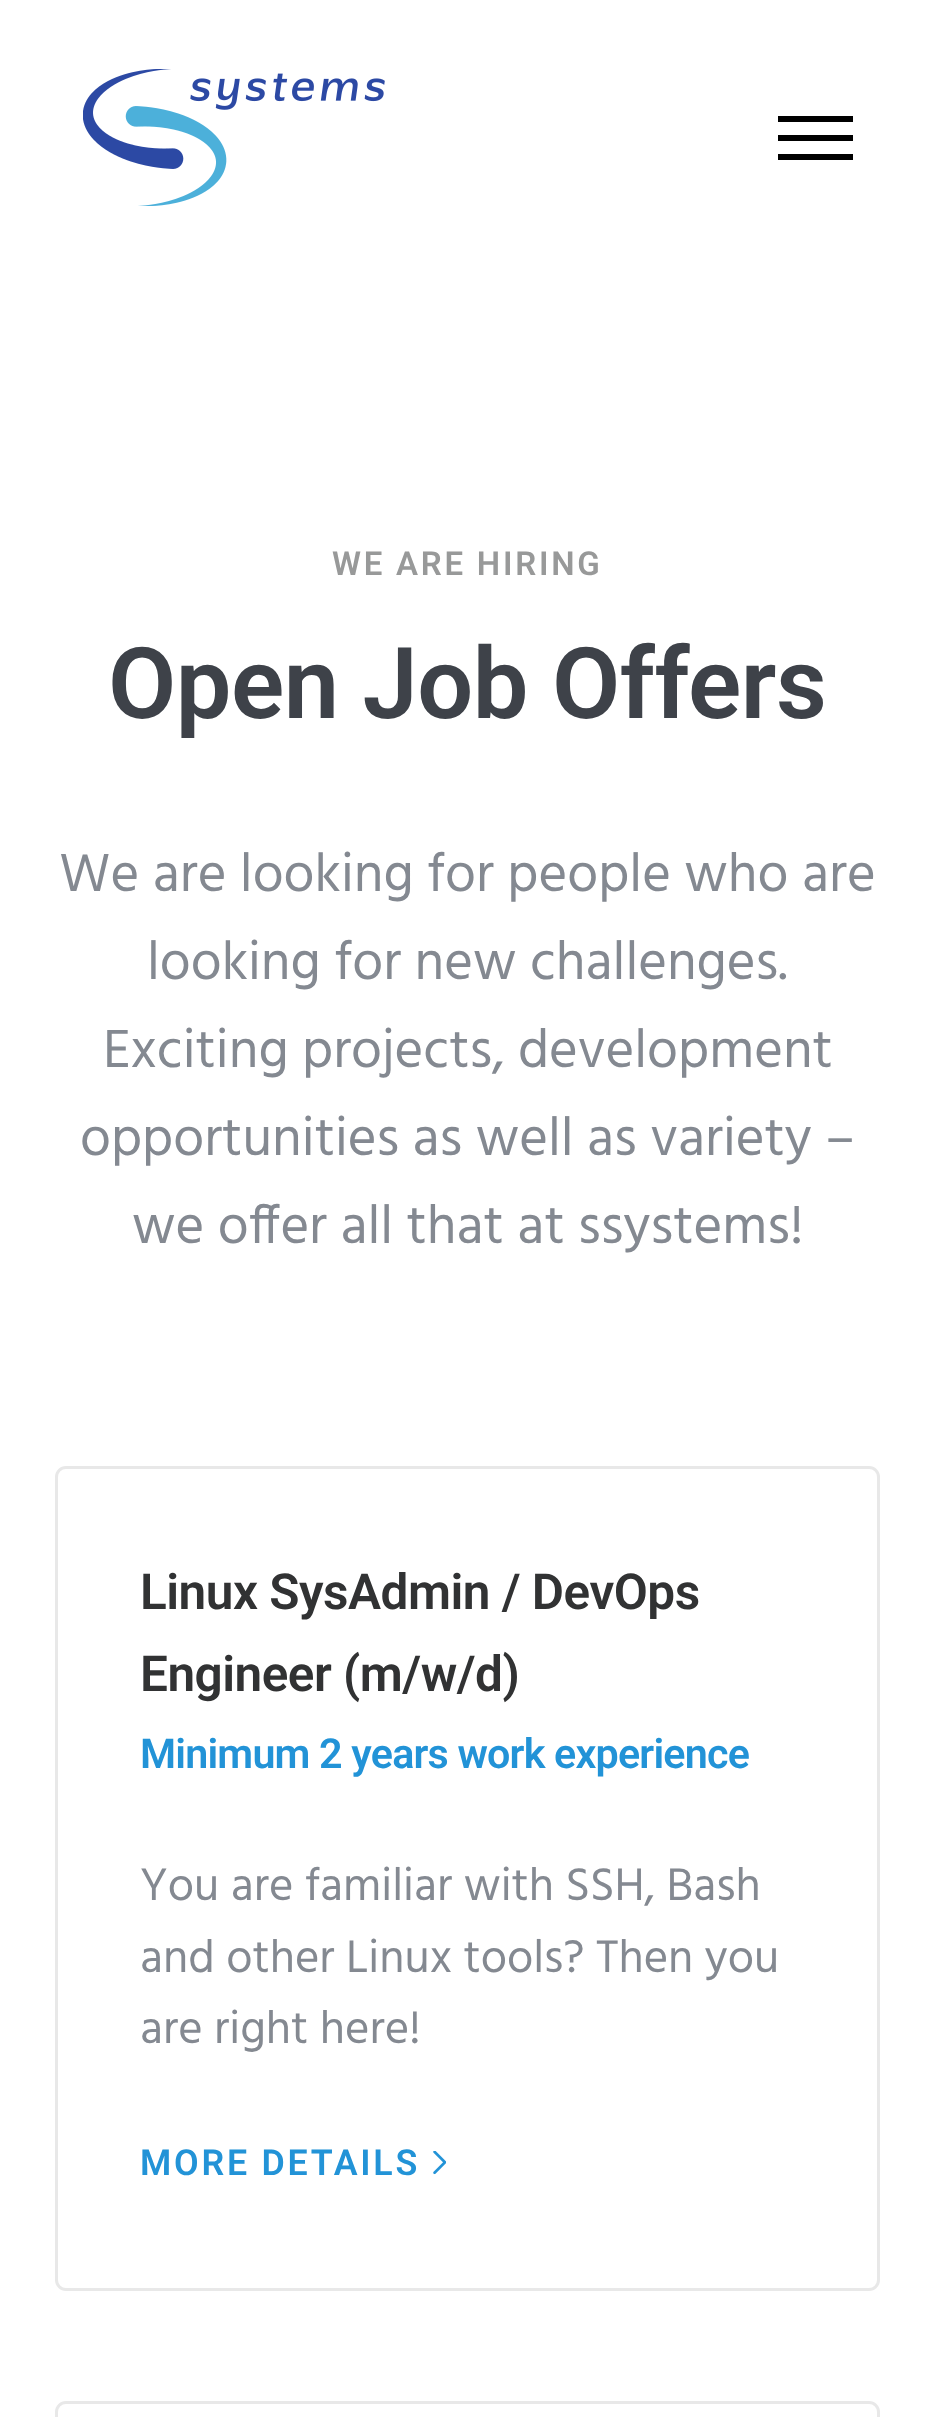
async function draw(canvas) {
  canvas.width = 935
  canvas.height = 2417
  const ctx = canvas.getContext('2d')
  ctx.miterLimit = 4
  ctx.fontKerning = 'normal'
  async function loadImage(src) {
    const img = new Image()
    img.src = src
    await img.decode()
    return img
  }

  ctx.fillStyle = '#fff'
  ctx.fillRect(0, 0, 935, 2417)
  ctx.drawImage(await loadImage('image0.png'), 83, 69, 302, 137)
  ctx.fillStyle = '#000'
  ctx.fillRect(778, 116, 75, 6)
  ctx.fillRect(778, 135, 75, 6)
  ctx.fillRect(778, 154, 75, 6)
  ctx.letterSpacing = '2.75px'
  ctx.font = '600 33px Roboto'
  ctx.fillStyle = '#989999'
  ctx.fillText('WE ARE HIRING', 332, 575)
  ctx.letterSpacing = '-0.5px'
  ctx.font = '600 99px Roboto'
  ctx.fillStyle = '#3e4249'
  ctx.fillText('Open Job Offers', 108, 718)
  ctx.letterSpacing = '0px'
  ctx.font = '55px Hind'
  ctx.fillStyle = '#848991'
  ctx.fillText('We are looking for people who are', 59, 891)
  ctx.fillText('looking for new challenges.', 147, 979)
  ctx.fillText('Exciting projects, development', 103, 1067)
  ctx.fillText('opportunities as well as variety –', 80, 1155)
  ctx.fillText('we offer all that at ssystems!', 132, 1243)
  ctx.beginPath()
  ctx.roundRect(56.5, 1467.5, 822, 822, 9.5)
  ctx.strokeStyle = '#e8e8e8'
  ctx.lineWidth = 3
  ctx.stroke()
  ctx.letterSpacing = '-0.5px'
  ctx.font = '600 49.5px Roboto'
  ctx.fillStyle = '#313233'
  ctx.fillText('Linux SysAdmin / DevOps', 140, 1609)
  ctx.fillText('Engineer (m/w/d)', 140, 1691)
  ctx.letterSpacing = '-0.8px'
  ctx.font = '600 41.25px Roboto'
  ctx.fillStyle = '#2293d7'
  ctx.fillText('Minimum 2 years work experience', 140, 1768)
  ctx.letterSpacing = '0px'
  ctx.font = '46.75px Hind'
  ctx.fillStyle = '#848991'
  ctx.fillText('You are familiar with SSH, Bash', 140, 1900)
  ctx.fillText('and other Linux tools? Then you', 140, 1972)
  ctx.fillText('are right here!', 140, 2043)
  ctx.letterSpacing = '2.75px'
  ctx.font = '600 35.75px Roboto'
  ctx.fillStyle = '#2293d7'
  ctx.fillText('MORE DETAILS', 140, 2175)
  ctx.drawImage(await loadImage('image1.png'), 433, 2151, 13, 24)
  ctx.beginPath()
  ctx.roundRect(56.5, 2402.5, 822, 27, 9.5)
  ctx.stroke()
}

draw(document.querySelector('canvas'))
